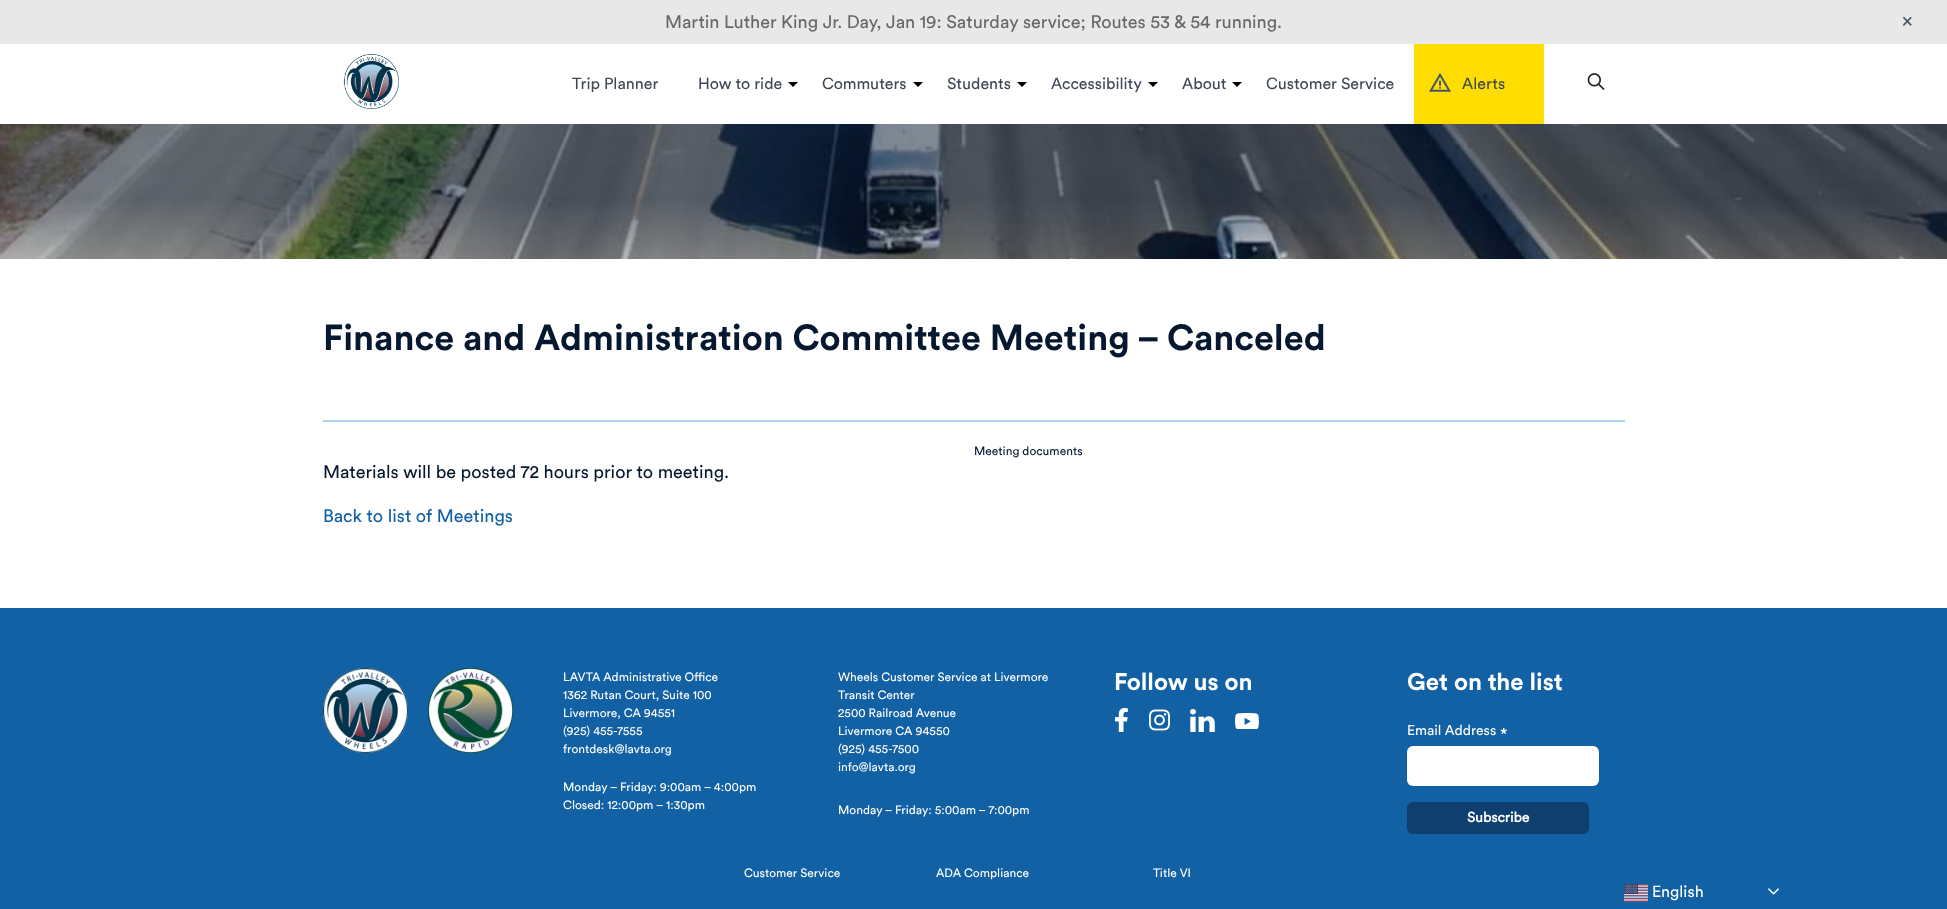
async function draw(canvas) {
  canvas.width = 1947
  canvas.height = 909
  const ctx = canvas.getContext('2d')
  ctx.miterLimit = 4
  ctx.fontKerning = 'normal'
  async function loadImage(src) {
    const img = new Image()
    img.src = src
    await img.decode()
    return img
  }

  ctx.fillStyle = '#fff'
  ctx.fillRect(0, 0, 1947, 909)
  ctx.fillStyle = '#e8e8e8'
  ctx.fillRect(0, 0, 1947, 44)
  ctx.font = '18px Circular'
  ctx.fillStyle = '#676767'
  ctx.fillText('Martin Luther King Jr. Day, Jan 19: Saturday service; Routes 53 & 54 running.', 665, 28)
  ctx.font = '20px Circular'
  ctx.fillStyle = '#475467'
  ctx.fillText('×', 1902, 27)
  ctx.drawImage(await loadImage('image0.png'), 343, 54, 56, 55)
  ctx.font = '16px Circular'
  ctx.fillStyle = '#3d4755'
  ctx.fillText('Trip Planner', 572, 89)
  ctx.fillText('How to ride', 698, 89)
  ctx.fillStyle = '#000'
  ctx.beginPath()
  ctx.moveTo(788, 82)
  ctx.lineTo(798, 82)
  ctx.lineTo(793, 87)
  ctx.closePath()
  ctx.fill()
  ctx.fillStyle = '#3d4755'
  ctx.fillText('Commuters', 822, 89)
  ctx.fillStyle = '#000'
  ctx.beginPath()
  ctx.moveTo(913, 82)
  ctx.lineTo(923, 82)
  ctx.lineTo(918, 87)
  ctx.closePath()
  ctx.fill()
  ctx.fillStyle = '#3d4755'
  ctx.fillText('Students', 947, 89)
  ctx.fillStyle = '#000'
  ctx.beginPath()
  ctx.moveTo(1017, 82)
  ctx.lineTo(1027, 82)
  ctx.lineTo(1022, 87)
  ctx.closePath()
  ctx.fill()
  ctx.fillStyle = '#3d4755'
  ctx.fillText('Accessibility', 1051, 89)
  ctx.fillStyle = '#000'
  ctx.beginPath()
  ctx.moveTo(1148, 82)
  ctx.lineTo(1158, 82)
  ctx.lineTo(1153, 87)
  ctx.closePath()
  ctx.fill()
  ctx.fillStyle = '#3d4755'
  ctx.fillText('About', 1182, 89)
  ctx.fillStyle = '#000'
  ctx.beginPath()
  ctx.moveTo(1232, 82)
  ctx.lineTo(1242, 82)
  ctx.lineTo(1237, 87)
  ctx.closePath()
  ctx.fill()
  ctx.fillStyle = '#3d4755'
  ctx.fillText('Customer Service', 1266, 89)
  ctx.fillStyle = '#fd0'
  ctx.fillRect(1414, 44, 130, 80)
  ctx.drawImage(await loadImage('image1.png'), 1429, 72, 22, 20)
  ctx.fillStyle = '#3d4755'
  ctx.fillText('Alerts', 1462, 89)
  ctx.drawImage(await loadImage('image2.png'), 1587, 73, 18, 17)
  ctx.drawImage(await loadImage('image3.png'), 0, 124, 1947, 135)
  ctx.font = 'bold 36px Circular'
  ctx.fillStyle = '#061730'
  ctx.fillText('Finance and Administration Committee Meeting – Canceled', 323, 350)
  ctx.fillStyle = '#a9d5f1'
  ctx.fillRect(323, 420, 1302, 2)
  ctx.font = '12px Circular'
  ctx.fillStyle = '#061730'
  ctx.fillText('Meeting documents', 974, 455)
  ctx.font = '18px Circular'
  ctx.fillText('Materials will be posted 72 hours prior to meeting.', 323, 478)
  ctx.fillStyle = '#1261a4'
  ctx.fillText('Back to list of Meetings', 323, 522)
  ctx.fillRect(0, 608, 1947, 301)
  ctx.drawImage(await loadImage('image4.png'), 323, 668, 85, 85)
  ctx.drawImage(await loadImage('image5.png'), 428, 668, 85, 85)
  ctx.font = '12px Circular'
  ctx.fillStyle = '#fff'
  ctx.fillText('LAVTA Administrative Office', 563, 681)
  ctx.fillText('1362 Rutan Court, Suite 100', 563, 699)
  ctx.fillText('Livermore, CA 94551', 563, 717)
  ctx.fillText('(925) 455-7555', 563, 735)
  ctx.fillText('frontdesk@lavta.org', 563, 753)
  ctx.fillText('Monday – Friday: 9:00am – 4:00pm', 563, 791)
  ctx.fillText('Closed: 12:00pm – 1:30pm', 563, 809)
  ctx.fillText('Wheels Customer Service at Livermore', 838, 681)
  ctx.fillText('Transit Center', 838, 699)
  ctx.fillText('2500 Railroad Avenue', 838, 717)
  ctx.fillText('Livermore CA 94550', 838, 735)
  ctx.fillText('(925) 455-7500', 838, 753)
  ctx.fillText('info@lavta.org', 838, 771)
  ctx.fillText('Monday – Friday: 5:00am – 7:00pm', 838, 814)
  ctx.font = 'bold 24px Circular'
  ctx.fillText('Follow us on', 1114, 690)
  ctx.drawImage(await loadImage('image6.png'), 1115, 708, 13, 24)
  ctx.drawImage(await loadImage('image7.png'), 1149, 709, 21, 22)
  ctx.drawImage(await loadImage('image8.png'), 1190, 709, 25, 23)
  ctx.drawImage(await loadImage('image9.png'), 1235, 713, 24, 16)
  ctx.fillText('Get on the list', 1407, 690)
  ctx.font = '14px Circular'
  ctx.fillText('Email Address', 1407, 735)
  ctx.font = '17px Circular'
  ctx.fillText('*', 1500, 740)
  ctx.beginPath()
  ctx.roundRect(1407, 746, 192, 40, 6)
  ctx.fill()
  ctx.fillStyle = '#0e3f6e'
  ctx.beginPath()
  ctx.roundRect(1407, 802, 182, 32, 6)
  ctx.fill()
  ctx.font = 'bold 14px "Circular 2"'
  ctx.fillStyle = '#fff'
  ctx.fillText('Subscribe', 1467, 822)
  ctx.font = '12px Circular'
  ctx.fillText('Customer Service', 744, 877)
  ctx.fillText('ADA Compliance', 936, 877)
  ctx.fillText('Title VI', 1153, 877)
  ctx.drawImage(await loadImage('image10.png'), 1624, 884, 24, 18)
  ctx.font = '16px Circular'
  ctx.fillText('English', 1652, 897)
  ctx.drawImage(await loadImage('image11.png'), 1768, 888, 11, 7)
}

draw(document.querySelector('canvas'))
